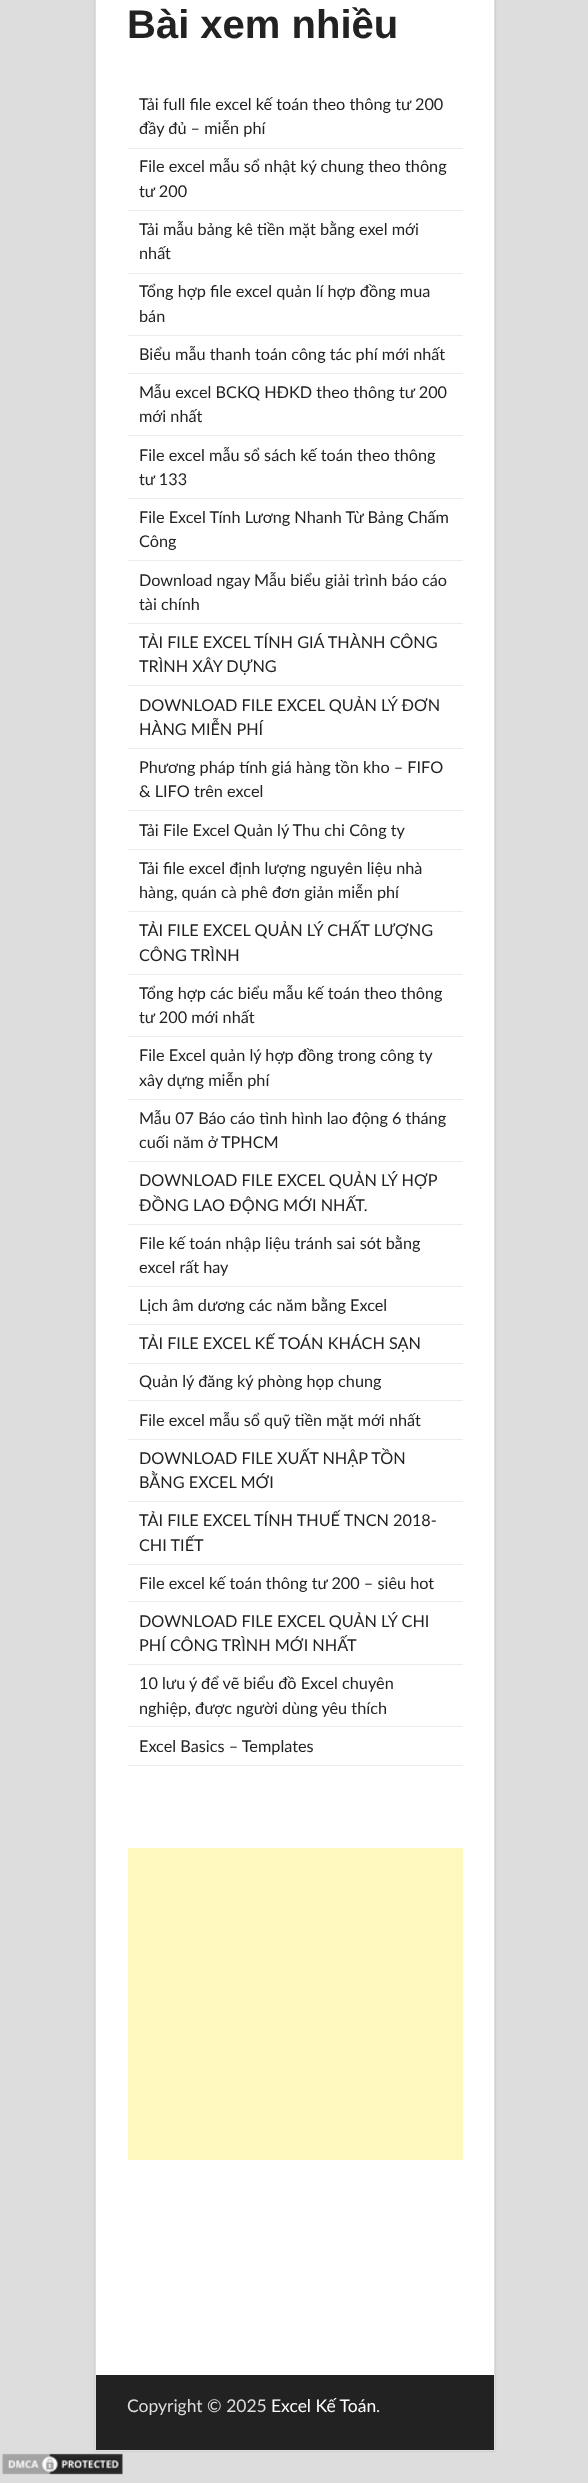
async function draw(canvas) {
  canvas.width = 588
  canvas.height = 2483
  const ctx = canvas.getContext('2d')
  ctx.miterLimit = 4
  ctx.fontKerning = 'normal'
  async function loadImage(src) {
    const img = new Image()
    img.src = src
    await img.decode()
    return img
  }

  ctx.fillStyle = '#ddd'
  ctx.fillRect(0, 0, 588, 2483)
  ctx.fillStyle = '#bbb'
  ctx.filter = 'blur(1px)'
  ctx.beginPath()
  ctx.rect(95, -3, 400, 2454)
  ctx.fill()
  ctx.filter = 'none'
  ctx.fillStyle = '#fff'
  ctx.fillRect(96, 0, 398, 2375)
  ctx.strokeStyle = '#dfdfdf'
  ctx.strokeRect(95.5, -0.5, 399, 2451)
  ctx.font = 'bold 40px Liberation Sans'
  ctx.fillStyle = '#222'
  ctx.fillText('Bài xem nhiều', 127, 38)
  ctx.fillStyle = '#ecede8'
  ctx.fillRect(128, 148, 335, 1)
  ctx.font = '16.25px Lato'
  ctx.fillStyle = '#222'
  ctx.fillText('Tải full file excel kế toán theo thông tư 200', 139, 110)
  ctx.fillText('đầy đủ – miễn phí', 139, 134)
  ctx.fillStyle = '#ecede8'
  ctx.fillRect(128, 210, 335, 1)
  ctx.fillStyle = '#222'
  ctx.fillText('File excel mẫu sổ nhật ký chung theo thông', 139, 172)
  ctx.fillText('tư 200', 139, 197)
  ctx.fillStyle = '#ecede8'
  ctx.fillRect(128, 273, 335, 1)
  ctx.fillStyle = '#222'
  ctx.fillText('Tải mẫu bảng kê tiền mặt bằng exel mới', 139, 235)
  ctx.fillText('nhất', 139, 259)
  ctx.fillStyle = '#ecede8'
  ctx.fillRect(128, 335, 335, 1)
  ctx.fillStyle = '#222'
  ctx.fillText('Tổng hợp file excel quản lí hợp đồng mua', 139, 297)
  ctx.fillText('bán', 139, 322)
  ctx.fillStyle = '#ecede8'
  ctx.fillRect(128, 373, 335, 1)
  ctx.fillStyle = '#222'
  ctx.fillText('Biểu mẫu thanh toán công tác phí mới nhất', 139, 360)
  ctx.fillStyle = '#ecede8'
  ctx.fillRect(128, 435, 335, 1)
  ctx.fillStyle = '#222'
  ctx.fillText('Mẫu excel BCKQ HĐKD theo thông tư 200', 139, 398)
  ctx.fillText('mới nhất', 139, 422)
  ctx.fillStyle = '#ecede8'
  ctx.fillRect(128, 498, 335, 1)
  ctx.fillStyle = '#222'
  ctx.fillText('File excel mẫu sổ sách kế toán theo thông', 139, 461)
  ctx.fillText('tư 133', 139, 485)
  ctx.fillStyle = '#ecede8'
  ctx.fillRect(128, 560, 335, 1)
  ctx.fillStyle = '#222'
  ctx.fillText('File Excel Tính Lương Nhanh Từ Bảng Chấm', 139, 523)
  ctx.fillText('Công', 139, 547)
  ctx.fillStyle = '#ecede8'
  ctx.fillRect(128, 623, 335, 1)
  ctx.fillStyle = '#222'
  ctx.fillText('Download ngay Mẫu biểu giải trình báo cáo', 139, 586)
  ctx.fillText('tài chính', 139, 610)
  ctx.fillStyle = '#ecede8'
  ctx.fillRect(128, 685, 335, 1)
  ctx.fillStyle = '#222'
  ctx.fillText('TẢI FILE EXCEL TÍNH GIÁ THÀNH CÔNG', 139, 648)
  ctx.fillText('TRÌNH XÂY DỰNG', 139, 672)
  ctx.fillStyle = '#ecede8'
  ctx.fillRect(128, 748, 335, 1)
  ctx.fillStyle = '#222'
  ctx.fillText('DOWNLOAD FILE EXCEL QUẢN LÝ ĐƠN', 139, 711)
  ctx.fillText('HÀNG MIỄN PHÍ', 139, 735)
  ctx.fillStyle = '#ecede8'
  ctx.fillRect(128, 810, 335, 1)
  ctx.fillStyle = '#222'
  ctx.fillText('Phương pháp tính giá hàng tồn kho – FIFO', 139, 773)
  ctx.fillText('& LIFO trên excel', 139, 797)
  ctx.fillStyle = '#ecede8'
  ctx.fillRect(128, 849, 335, 1)
  ctx.fillStyle = '#222'
  ctx.fillText('Tải File Excel Quản lý Thu chi Công ty', 139, 836)
  ctx.fillStyle = '#ecede8'
  ctx.fillRect(128, 911, 335, 1)
  ctx.fillStyle = '#222'
  ctx.fillText('Tải file excel định lượng nguyên liệu nhà', 139, 874)
  ctx.fillText('hàng, quán cà phê đơn giản miễn phí', 139, 898)
  ctx.fillStyle = '#ecede8'
  ctx.fillRect(128, 974, 335, 1)
  ctx.fillStyle = '#222'
  ctx.fillText('TẢI FILE EXCEL QUẢN LÝ CHẤT LƯỢNG', 139, 936)
  ctx.fillText('CÔNG TRÌNH', 139, 961)
  ctx.fillStyle = '#ecede8'
  ctx.fillRect(128, 1036, 335, 1)
  ctx.fillStyle = '#222'
  ctx.fillText('Tổng hợp các biểu mẫu kế toán theo thông', 139, 999)
  ctx.fillText('tư 200 mới nhất', 139, 1023)
  ctx.fillStyle = '#ecede8'
  ctx.fillRect(128, 1099, 335, 1)
  ctx.fillStyle = '#222'
  ctx.fillText('File Excel quản lý hợp đồng trong công ty', 139, 1061)
  ctx.fillText('xây dựng miễn phí', 139, 1086)
  ctx.fillStyle = '#ecede8'
  ctx.fillRect(128, 1161, 335, 1)
  ctx.fillStyle = '#222'
  ctx.fillText('Mẫu 07 Báo cáo tình hình lao động 6 tháng', 139, 1124)
  ctx.fillText('cuối năm ở TPHCM', 139, 1148)
  ctx.fillStyle = '#ecede8'
  ctx.fillRect(128, 1224, 335, 1)
  ctx.fillStyle = '#222'
  ctx.fillText('DOWNLOAD FILE EXCEL QUẢN LÝ HỢP', 139, 1186)
  ctx.fillText('ĐỒNG LAO ĐỘNG MỚI NHẤT.', 139, 1211)
  ctx.fillStyle = '#ecede8'
  ctx.fillRect(128, 1286, 335, 1)
  ctx.fillStyle = '#222'
  ctx.fillText('File kế toán nhập liệu tránh sai sót bằng', 139, 1249)
  ctx.fillText('excel rất hay', 139, 1273)
  ctx.fillStyle = '#ecede8'
  ctx.fillRect(128, 1324, 335, 1)
  ctx.fillStyle = '#222'
  ctx.fillText('Lịch âm dương các năm bằng Excel', 139, 1311)
  ctx.fillStyle = '#ecede8'
  ctx.fillRect(128, 1363, 335, 1)
  ctx.fillStyle = '#222'
  ctx.fillText('TẢI FILE EXCEL KẾ TOÁN KHÁCH SẠN', 139, 1349)
  ctx.fillStyle = '#ecede8'
  ctx.fillRect(128, 1400, 335, 1)
  ctx.fillStyle = '#222'
  ctx.fillText('Quản lý đăng ký phòng họp chung', 139, 1387)
  ctx.fillStyle = '#ecede8'
  ctx.fillRect(128, 1439, 335, 1)
  ctx.fillStyle = '#222'
  ctx.fillText('File excel mẫu sổ quỹ tiền mặt mới nhất', 139, 1426)
  ctx.fillStyle = '#ecede8'
  ctx.fillRect(128, 1501, 335, 1)
  ctx.fillStyle = '#222'
  ctx.fillText('DOWNLOAD FILE XUẤT NHẬP TỒN', 139, 1464)
  ctx.fillText('BẰNG EXCEL MỚI', 139, 1488)
  ctx.fillStyle = '#ecede8'
  ctx.fillRect(128, 1564, 335, 1)
  ctx.fillStyle = '#222'
  ctx.fillText('TẢI FILE EXCEL TÍNH THUẾ TNCN 2018-', 139, 1526)
  ctx.fillText('CHI TIẾT', 139, 1551)
  ctx.fillStyle = '#ecede8'
  ctx.fillRect(128, 1601, 335, 1)
  ctx.fillStyle = '#222'
  ctx.fillText('File excel kế toán thông tư 200 – siêu hot', 139, 1589)
  ctx.fillStyle = '#ecede8'
  ctx.fillRect(128, 1664, 335, 1)
  ctx.fillStyle = '#222'
  ctx.fillText('DOWNLOAD FILE EXCEL QUẢN LÝ CHI', 139, 1627)
  ctx.fillText('PHÍ CÔNG TRÌNH MỚI NHẤT', 139, 1651)
  ctx.fillStyle = '#ecede8'
  ctx.fillRect(128, 1726, 335, 1)
  ctx.fillStyle = '#222'
  ctx.fillText('10 lưu ý để vẽ biểu đồ Excel chuyên', 139, 1689)
  ctx.fillText('nghiệp, được người dùng yêu thích', 139, 1714)
  ctx.fillStyle = '#ecede8'
  ctx.fillRect(128, 1765, 335, 1)
  ctx.fillStyle = '#222'
  ctx.fillText('Excel Basics – Templates', 139, 1752)
  ctx.fillStyle = '#fff9c0'
  ctx.fillRect(128, 1848, 335, 312)
  ctx.fillStyle = '#222'
  ctx.fillRect(96, 2375, 398, 75)
  ctx.font = '17.5px Lato'
  ctx.fillStyle = '#ddd'
  ctx.fillText('Copyright © 2025', 127, 2412)
  ctx.fillStyle = '#fff'
  ctx.fillText('Excel Kế Toán', 271, 2412)
  ctx.fillStyle = '#ddd'
  ctx.fillText('.', 376, 2412)
  ctx.drawImage(await loadImage('image0.png'), 2, 2453, 121, 22)
}

draw(document.querySelector('canvas'))
